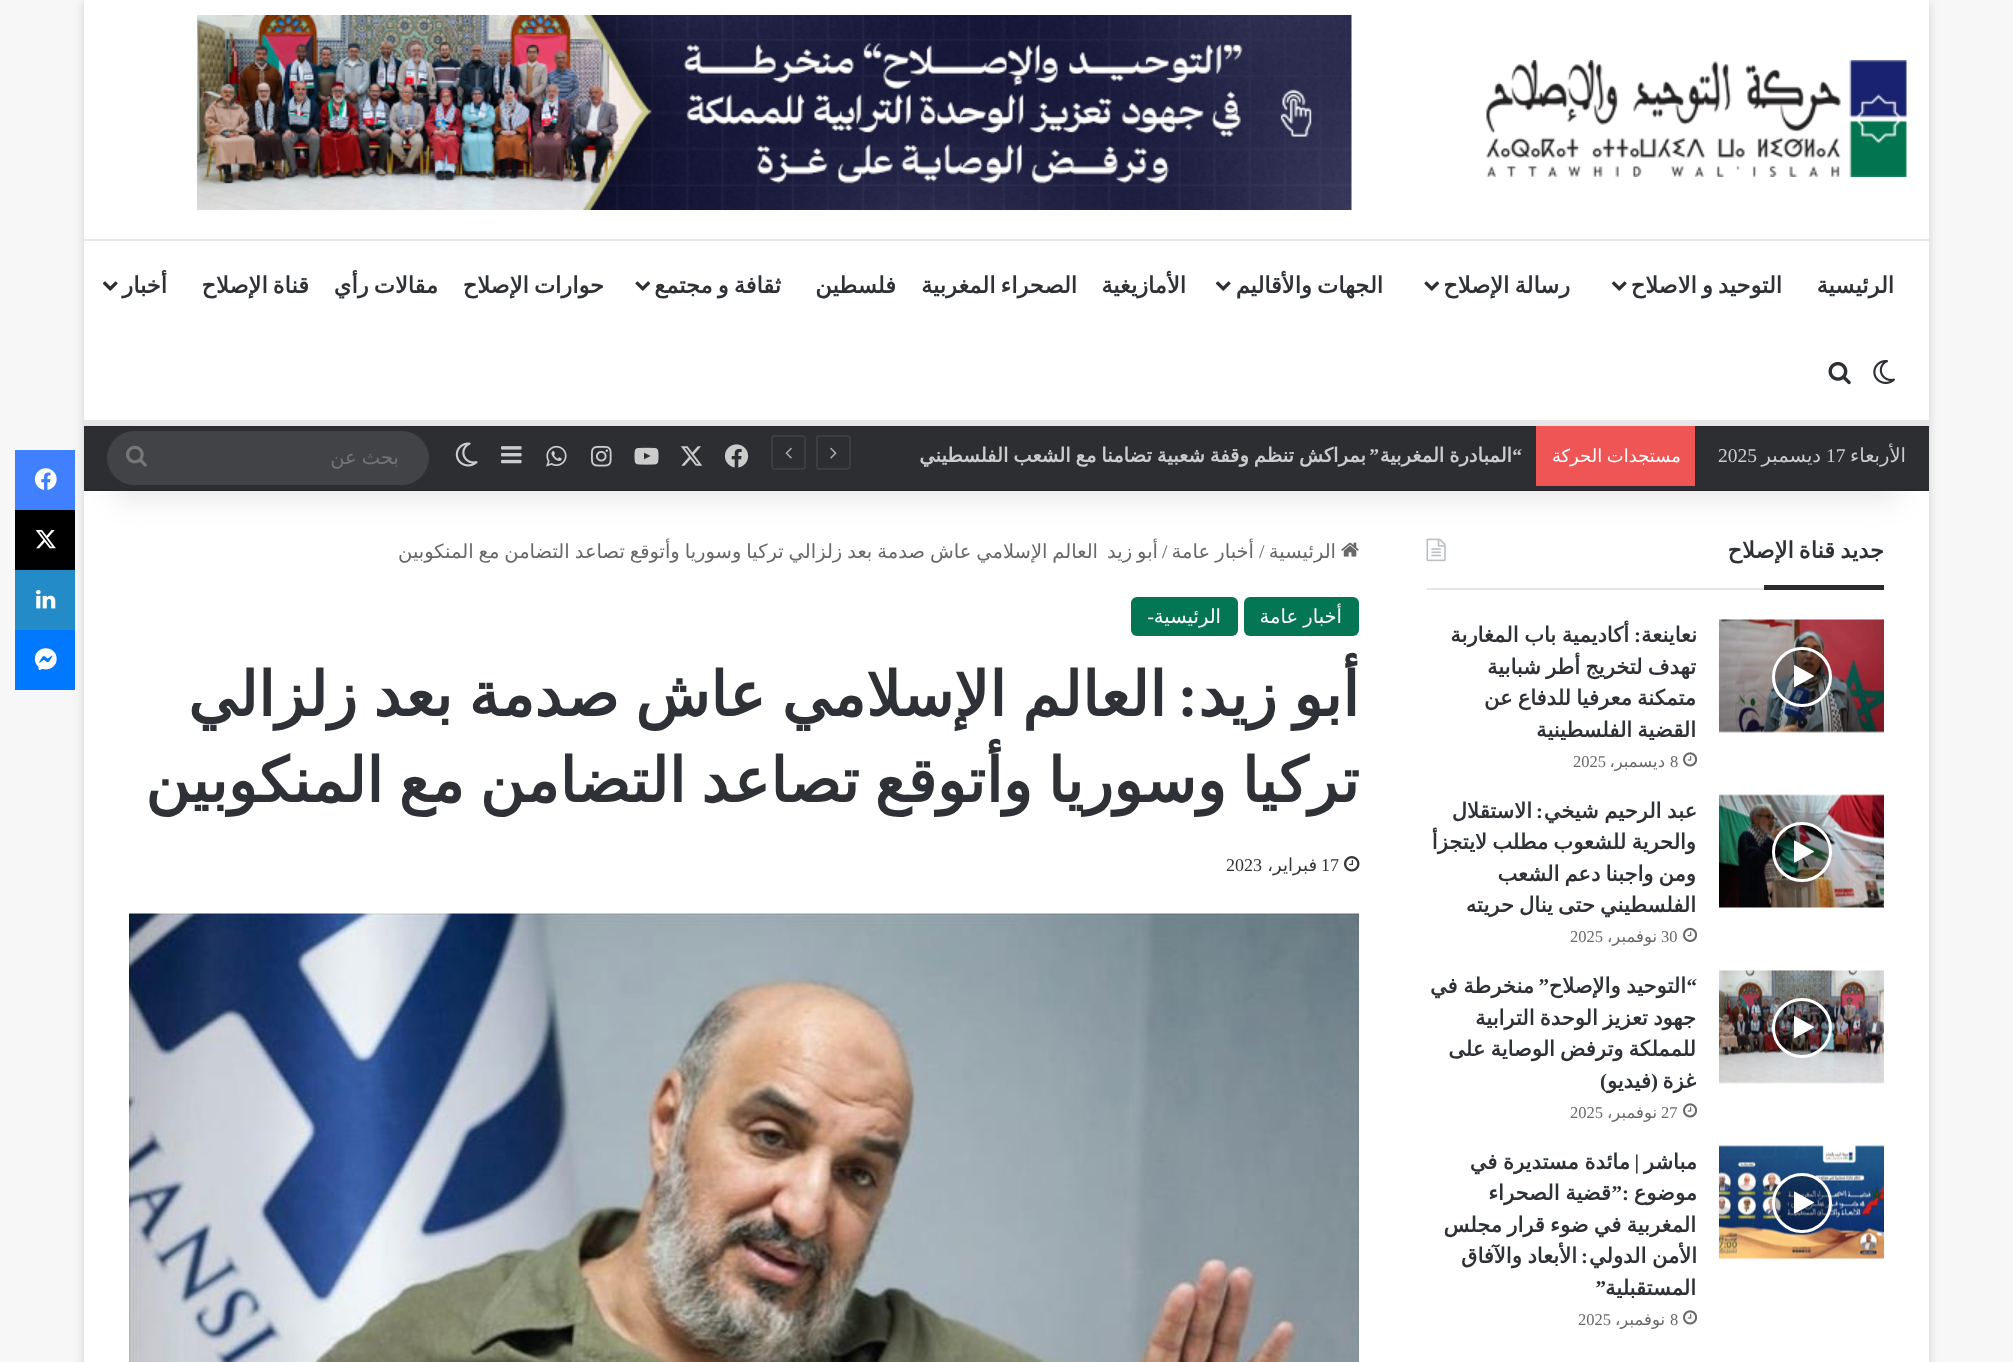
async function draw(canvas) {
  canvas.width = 2013
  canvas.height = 1362
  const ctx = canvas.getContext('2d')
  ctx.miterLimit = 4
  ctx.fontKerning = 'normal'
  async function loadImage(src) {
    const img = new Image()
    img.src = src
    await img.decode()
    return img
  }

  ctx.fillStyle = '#f7f7f7'
  ctx.fillRect(0, 0, 2013, 1362)
  ctx.fillStyle = '#ababab80'
  ctx.filter = 'blur(5px)'
  ctx.beginPath()
  ctx.rect(84, 2, 1845, 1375)
  ctx.fill()
  ctx.filter = 'none'
  ctx.fillStyle = '#fff'
  ctx.fillRect(84, 491, 1845, 871)
  ctx.drawImage(await loadImage('image16.png'), 1426, 538, 20, 24)
  ctx.drawImage(await loadImage('image27.png'), 1341, 542, 18, 15)
  ctx.fillStyle = '#0000001a'
  ctx.filter = 'blur(15px)'
  ctx.beginPath()
  ctx.rect(114, 68, 1785, 430)
  ctx.fill()
  ctx.filter = 'none'
  ctx.fillStyle = '#fff'
  ctx.fillRect(84, 0, 1845, 239)
  ctx.drawImage(await loadImage('image0.png'), 1486, 60, 421, 117)
  ctx.drawImage(await loadImage('image1.png'), 197, 15, 1155, 195)
  ctx.fillRect(84, 241, 1845, 179)
  ctx.fillStyle = '#e6e6e6'
  ctx.fillRect(84, 239, 1845, 2)
  ctx.fillRect(84, 420, 1845, 6)
  ctx.direction = 'rtl'
  ctx.font = 'bold 22.5px DejaVu Sans'
  ctx.fillStyle = '#2e3136'
  ctx.fillText('الرئيسية', 1894, 293)
  ctx.wordSpacing = '-2px'
  ctx.fillText('التوحيد و الاصلاح', 1782, 293)
  ctx.drawImage(await loadImage('image2.png'), 1611, 281, 16, 10)
  ctx.fillText('رسالة الإصلاح', 1570, 293)
  ctx.drawImage(await loadImage('image3.png'), 1424, 281, 16, 10)
  ctx.fillText('الجهات والأقاليم', 1383, 293)
  ctx.drawImage(await loadImage('image2.png'), 1215, 281, 16, 10)
  ctx.wordSpacing = '0px'
  ctx.fillText('الأمازيغية', 1186, 293)
  ctx.wordSpacing = '-2px'
  ctx.fillText('الصحراء المغربية', 1077, 293)
  ctx.wordSpacing = '0px'
  ctx.fillText('فلسطين', 896, 293)
  ctx.wordSpacing = '-2px'
  ctx.fillText('ثقافة و مجتمع', 781, 293)
  ctx.drawImage(await loadImage('image3.png'), 635, 281, 16, 10)
  ctx.fillText('حوارات الإصلاح', 604, 293)
  ctx.fillText('مقالات رأي', 438, 293)
  ctx.fillText('قناة الإصلاح', 309, 293)
  ctx.wordSpacing = '0px'
  ctx.fillText('أخبار', 167, 293)
  ctx.drawImage(await loadImage('image2.png'), 102, 281, 16, 10)
  ctx.drawImage(await loadImage('image4.png'), 1873, 360, 22, 24)
  ctx.drawImage(await loadImage('image5.png'), 1828, 361, 23, 24)
  ctx.fillStyle = '#2c2e32'
  ctx.fillRect(84, 427, 1845, 62)
  ctx.fillStyle = '#28292d'
  ctx.fillRect(84, 426, 1845, 1)
  ctx.fillRect(84, 489, 1845, 2)
  ctx.font = '19.5px DejaVu Sans'
  ctx.fillStyle = '#ccc'
  ctx.fillText('الأربعاء', 1906, 462)
  ctx.direction = 'ltr'
  ctx.font = '19.5px Liberation Serif'
  ctx.fillText('17', 1826, 462)
  ctx.direction = 'rtl'
  ctx.font = '19.5px DejaVu Sans'
  ctx.fillText('ديسمبر', 1821, 462)
  ctx.direction = 'ltr'
  ctx.font = '19.5px Liberation Serif'
  ctx.fillText('2025', 1718, 462)
  ctx.fillStyle = '#f05555'
  ctx.fillRect(1536, 426, 159, 60)
  ctx.wordSpacing = '-1px'
  ctx.direction = 'rtl'
  ctx.font = '18px DejaVu Sans'
  ctx.fillStyle = '#fff'
  ctx.fillText('مستجدات الحركة', 1681, 462)
  ctx.fillStyle = '#2c2e32'
  ctx.fillRect(920, 426, 601, 1)
  ctx.wordSpacing = '0px'
  ctx.font = 'bold 19.5px Liberation Serif'
  ctx.fillStyle = '#ccc'
  ctx.fillText('“', 1522, 462)
  ctx.wordSpacing = '-1.25px'
  ctx.font = 'bold 19.5px DejaVu Sans'
  ctx.fillText('المبادرة المغربية', 1512, 462)
  ctx.fillText('بمراكش تنظم وقفة شعبية تضامنا مع الشعب الفلسطيني', 1366, 462)
  ctx.wordSpacing = '0px'
  ctx.font = 'bold 19.5px Liberation Serif'
  ctx.fillText('”', 1379, 462)
  ctx.beginPath()
  ctx.moveTo(847.5, 469)
  ctx.lineTo(819, 469)
  ctx.bezierCurveTo(818, 469, 817, 467.5, 817, 466.5)
  ctx.lineTo(817, 438)
  ctx.bezierCurveTo(817, 437, 818, 436, 819, 436)
  ctx.lineTo(847.5, 436)
  ctx.bezierCurveTo(848.5, 436, 850, 437, 850, 438)
  ctx.lineTo(850, 466.5)
  ctx.bezierCurveTo(850, 467.5, 848.5, 469, 847.5, 469)
  ctx.closePath()
  ctx.strokeStyle = '#414347'
  ctx.lineWidth = 1.5
  ctx.stroke()
  ctx.drawImage(await loadImage('image6.png'), 830, 447, 7, 12)
  ctx.beginPath()
  ctx.moveTo(802.5, 469)
  ctx.lineTo(774, 469)
  ctx.bezierCurveTo(773, 469, 772, 467.5, 772, 466.5)
  ctx.lineTo(772, 438)
  ctx.bezierCurveTo(772, 437, 773, 436, 774, 436)
  ctx.lineTo(802.5, 436)
  ctx.bezierCurveTo(803.5, 436, 805, 437, 805, 438)
  ctx.lineTo(805, 466.5)
  ctx.bezierCurveTo(805, 467.5, 803.5, 469, 802.5, 469)
  ctx.closePath()
  ctx.stroke()
  ctx.drawImage(await loadImage('image7.png'), 785, 447, 7, 12)
  ctx.drawImage(await loadImage('image8.png'), 724, 444, 25, 24)
  ctx.drawImage(await loadImage('image9.png'), 680, 446, 23, 20)
  ctx.drawImage(await loadImage('image10.png'), 634, 447, 25, 18)
  ctx.drawImage(await loadImage('image11.png'), 591, 445, 21, 22)
  ctx.drawImage(await loadImage('image12.png'), 546, 445, 21, 22)
  ctx.drawImage(await loadImage('image13.png'), 501, 446, 21, 18)
  ctx.drawImage(await loadImage('image14.png'), 455, 442, 23, 25)
  ctx.fillStyle = '#414347'
  ctx.beginPath()
  ctx.roundRect(107, 431, 322, 54, 27)
  ctx.fill()
  ctx.wordSpacing = '-1px'
  ctx.font = '19.5px DejaVu Sans'
  ctx.fillStyle = '#757575'
  ctx.fillText('بحث عن', 399, 464)
  ctx.drawImage(await loadImage('image15.png'), 126, 445, 21, 22)
  ctx.fillStyle = '#e6e6e6'
  ctx.fillRect(1427, 588, 337, 2)
  ctx.wordSpacing = '-2px'
  ctx.font = 'bold 22.5px DejaVu Sans'
  ctx.fillStyle = '#2e3136'
  ctx.fillText('جديد قناة الإصلاح', 1884, 558)
  ctx.fillStyle = '#292b2f'
  ctx.fillRect(1764, 585, 120, 5)
  ctx.drawImage(await loadImage('image17.png'), 1719, 619, 165, 114)
  ctx.fillStyle = '#0303034d'
  ctx.beginPath()
  ctx.arc(1802, 677, 28.5, 0, 2 * Math.PI)
  ctx.fill()
  ctx.strokeStyle = '#fff'
  ctx.lineWidth = 3
  ctx.stroke()
  ctx.drawImage(await loadImage('image18.png'), 1794, 665, 20, 23)
  ctx.wordSpacing = '0px'
  ctx.font = 'bold 21px DejaVu Sans'
  ctx.fillStyle = '#2e3136'
  ctx.fillText('نعاينعة', 1697, 642)
  ctx.font = 'bold 21px Liberation Serif'
  ctx.fillText(':', 1641, 642)
  ctx.wordSpacing = '-1px'
  ctx.font = 'bold 21px DejaVu Sans'
  ctx.fillText('أكاديمية باب المغاربة', 1629, 642)
  ctx.wordSpacing = '-1.5px'
  ctx.fillText('تهدف لتخريج أطر شبابية', 1696, 674)
  ctx.fillText('متمكنة معرفيا للدفاع عن', 1696, 705)
  ctx.fillText('القضية الفلسطينية', 1696, 737)
  ctx.drawImage(await loadImage('image19.png'), 1683, 752, 14, 15)
  ctx.wordSpacing = '0px'
  ctx.direction = 'ltr'
  ctx.font = '16.5px Liberation Serif'
  ctx.fillStyle = '#686868'
  ctx.fillText('8', 1670, 767)
  ctx.direction = 'rtl'
  ctx.font = '16.5px DejaVu Sans'
  ctx.fillText('ديسمبر،', 1665, 767)
  ctx.direction = 'ltr'
  ctx.font = '16.5px Liberation Serif'
  ctx.fillText('2025', 1573, 767)
  ctx.drawImage(await loadImage('image20.png'), 1719, 794, 165, 114)
  ctx.fillStyle = '#0303034d'
  ctx.beginPath()
  ctx.arc(1802, 852, 28.5, 0, 2 * Math.PI)
  ctx.fill()
  ctx.stroke()
  ctx.drawImage(await loadImage('image21.png'), 1794, 840, 20, 23)
  ctx.wordSpacing = '-1px'
  ctx.direction = 'rtl'
  ctx.font = 'bold 21px DejaVu Sans'
  ctx.fillStyle = '#2e3136'
  ctx.fillText('عبد الرحيم شيخي', 1697, 818)
  ctx.wordSpacing = '0px'
  ctx.font = 'bold 21px Liberation Serif'
  ctx.fillText(':', 1543, 818)
  ctx.font = 'bold 21px DejaVu Sans'
  ctx.fillText('الاستقلال', 1532, 818)
  ctx.wordSpacing = '-1.5px'
  ctx.fillText('والحرية للشعوب مطلب لايتجزأ', 1696, 849)
  ctx.fillText('ومن واجبنا دعم الشعب', 1696, 881)
  ctx.fillText('الفلسطيني حتى ينال حريته', 1696, 912)
  ctx.drawImage(await loadImage('image22.png'), 1683, 927, 14, 15)
  ctx.wordSpacing = '0px'
  ctx.direction = 'ltr'
  ctx.font = '16.5px Liberation Serif'
  ctx.fillStyle = '#686868'
  ctx.fillText('30', 1661, 942)
  ctx.direction = 'rtl'
  ctx.font = '16.5px DejaVu Sans'
  ctx.fillText('نوفمبر،', 1657, 942)
  ctx.direction = 'ltr'
  ctx.font = '16.5px Liberation Serif'
  ctx.fillText('2025', 1570, 942)
  ctx.drawImage(await loadImage('image23.png'), 1719, 970, 165, 114)
  ctx.fillStyle = '#0303034d'
  ctx.beginPath()
  ctx.arc(1802, 1028, 28.5, 0, 2 * Math.PI)
  ctx.fill()
  ctx.stroke()
  ctx.drawImage(await loadImage('image24.png'), 1794, 1016, 20, 23)
  ctx.direction = 'rtl'
  ctx.font = 'bold 21px Liberation Serif'
  ctx.fillStyle = '#2e3136'
  ctx.fillText('“', 1697, 993)
  ctx.wordSpacing = '-1px'
  ctx.font = 'bold 21px DejaVu Sans'
  ctx.fillText('التوحيد والإصلاح', 1686, 993)
  ctx.wordSpacing = '0px'
  ctx.font = 'bold 21px Liberation Serif'
  ctx.fillText('”', 1549, 993)
  ctx.wordSpacing = '-1px'
  ctx.font = 'bold 21px DejaVu Sans'
  ctx.fillText('منخرطة في', 1534, 993)
  ctx.wordSpacing = '-1.5px'
  ctx.fillText('جهود تعزيز الوحدة الترابية', 1696, 1025)
  ctx.fillText('للمملكة وترفض الوصاية على', 1696, 1056)
  ctx.wordSpacing = '0px'
  ctx.fillText('غزة', 1696, 1088)
  ctx.font = 'bold 21px Liberation Serif'
  ctx.fillText('(', 1658, 1088)
  ctx.fillText(')', 1607, 1088)
  ctx.font = 'bold 21px DejaVu Sans'
  ctx.fillText('فيديو', 1651, 1088)
  ctx.drawImage(await loadImage('image19.png'), 1683, 1103, 14, 15)
  ctx.direction = 'ltr'
  ctx.font = '16.5px Liberation Serif'
  ctx.fillStyle = '#686868'
  ctx.fillText('27', 1661, 1118)
  ctx.direction = 'rtl'
  ctx.font = '16.5px DejaVu Sans'
  ctx.fillText('نوفمبر،', 1657, 1118)
  ctx.direction = 'ltr'
  ctx.font = '16.5px Liberation Serif'
  ctx.fillText('2025', 1570, 1118)
  ctx.drawImage(await loadImage('image25.png'), 1719, 1145, 165, 114)
  ctx.fillStyle = '#0303034d'
  ctx.beginPath()
  ctx.arc(1802, 1203, 28.5, 0, 2 * Math.PI)
  ctx.fill()
  ctx.stroke()
  ctx.drawImage(await loadImage('image26.png'), 1794, 1191, 20, 23)
  ctx.direction = 'rtl'
  ctx.font = 'bold 21px DejaVu Sans'
  ctx.fillStyle = '#2e3136'
  ctx.fillText('مباشر', 1697, 1169)
  ctx.font = 'bold 21px Liberation Serif'
  ctx.fillText('|', 1639, 1169)
  ctx.wordSpacing = '-1px'
  ctx.font = 'bold 21px DejaVu Sans'
  ctx.fillText('مائدة مستديرة في', 1630, 1169)
  ctx.wordSpacing = '0px'
  ctx.fillText('موضوع', 1697, 1200)
  ctx.font = 'bold 21px Liberation Serif'
  ctx.fillText(':”', 1629, 1200)
  ctx.wordSpacing = '-1px'
  ctx.font = 'bold 21px DejaVu Sans'
  ctx.fillText('قضية الصحراء', 1611, 1200)
  ctx.wordSpacing = '-1.5px'
  ctx.fillText('المغربية في ضوء قرار مجلس', 1696, 1232)
  ctx.wordSpacing = '-1px'
  ctx.fillText('الأمن الدولي', 1697, 1263)
  ctx.wordSpacing = '0px'
  ctx.font = 'bold 21px Liberation Serif'
  ctx.fillText(':', 1588, 1263)
  ctx.wordSpacing = '-1px'
  ctx.font = 'bold 21px DejaVu Sans'
  ctx.fillText('الأبعاد والآفاق', 1577, 1263)
  ctx.wordSpacing = '0px'
  ctx.fillText('المستقبلية', 1696, 1295)
  ctx.font = 'bold 21px Liberation Serif'
  ctx.fillText('”', 1606, 1295)
  ctx.drawImage(await loadImage('image19.png'), 1683, 1310, 14, 15)
  ctx.direction = 'ltr'
  ctx.font = '16.5px Liberation Serif'
  ctx.fillStyle = '#686868'
  ctx.fillText('8', 1670, 1325)
  ctx.direction = 'rtl'
  ctx.font = '16.5px DejaVu Sans'
  ctx.fillText('نوفمبر،', 1665, 1325)
  ctx.direction = 'ltr'
  ctx.font = '16.5px Liberation Serif'
  ctx.fillText('2025', 1578, 1325)
  ctx.direction = 'rtl'
  ctx.font = '19.5px DejaVu Sans'
  ctx.fillText('الرئيسية', 1336, 558)
  ctx.direction = 'ltr'
  ctx.font = '19.5px Liberation Serif'
  ctx.fillText('/', 1259, 558)
  ctx.wordSpacing = '-1px'
  ctx.direction = 'rtl'
  ctx.font = '19.5px DejaVu Sans'
  ctx.fillText('أخبار عامة', 1254, 558)
  ctx.wordSpacing = '0px'
  ctx.direction = 'ltr'
  ctx.font = '19.5px Liberation Serif'
  ctx.fillText('/', 1162, 558)
  ctx.wordSpacing = '-1.25px'
  ctx.direction = 'rtl'
  ctx.font = '19.5px DejaVu Sans'
  ctx.fillText('أبو زيد', 1158, 558)
  ctx.fillText('العالم الإسلامي عاش صدمة بعد زلزالي تركيا وسوريا وأتوقع تصاعد التضامن مع المنكوبين', 1098, 558)
  ctx.fillStyle = '#047653'
  ctx.beginPath()
  ctx.roundRect(1244, 597, 115, 39, 6)
  ctx.fill()
  ctx.wordSpacing = '-1px'
  ctx.fillStyle = '#fff'
  ctx.fillText('أخبار عامة', 1342, 623)
  ctx.fillStyle = '#047653'
  ctx.beginPath()
  ctx.roundRect(1131, 597, 107, 39, 6)
  ctx.fill()
  ctx.wordSpacing = '0px'
  ctx.fillStyle = '#fff'
  ctx.fillText('الرئيسية', 1221, 623)
  ctx.font = '19.5px Liberation Serif'
  ctx.fillText('-', 1154, 623)
  ctx.wordSpacing = '-3.5px'
  ctx.font = 'bold 61.5px DejaVu Sans'
  ctx.fillStyle = '#2e3136'
  ctx.fillText('أبو زيد', 1359, 716)
  ctx.wordSpacing = '0px'
  ctx.font = 'bold 61.5px Liberation Serif'
  ctx.fillText(':', 1198, 716)
  ctx.wordSpacing = '-3.5px'
  ctx.font = 'bold 61.5px DejaVu Sans'
  ctx.fillText('العالم الإسلامي عاش صدمة بعد زلزالي', 1166, 716)
  ctx.wordSpacing = '-4.25px'
  ctx.fillText('تركيا وسوريا وأتوقع تصاعد التضامن مع المنكوبين', 1359, 802)
  ctx.drawImage(await loadImage('image28.png'), 1344, 856, 16, 16)
  ctx.wordSpacing = '0px'
  ctx.direction = 'ltr'
  ctx.font = '18px Liberation Serif'
  ctx.fillStyle = '#353535'
  ctx.fillText('17', 1321, 871)
  ctx.direction = 'rtl'
  ctx.font = '18px DejaVu Sans'
  ctx.fillText('فبراير،', 1317, 871)
  ctx.direction = 'ltr'
  ctx.font = '18px Liberation Serif'
  ctx.fillText('2023', 1226, 871)
  ctx.drawImage(await loadImage('image29.png'), 129, 913, 1230, 449)
  ctx.fillStyle = '#4080ff'
  ctx.fillRect(15, 450, 60, 60)
  ctx.drawImage(await loadImage('image30.png'), 34, 468, 23, 22)
  ctx.fillStyle = '#000'
  ctx.fillRect(15, 510, 60, 60)
  ctx.drawImage(await loadImage('image31.png'), 35, 530, 21, 19)
  ctx.fillStyle = '#238cc8'
  ctx.fillRect(15, 570, 60, 60)
  ctx.drawImage(await loadImage('image32.png'), 36, 590, 20, 19)
  ctx.fillStyle = '#0078ff'
  ctx.fillRect(15, 630, 60, 60)
  ctx.drawImage(await loadImage('image33.png'), 34, 648, 23, 22)
}

draw(document.querySelector('canvas'))
